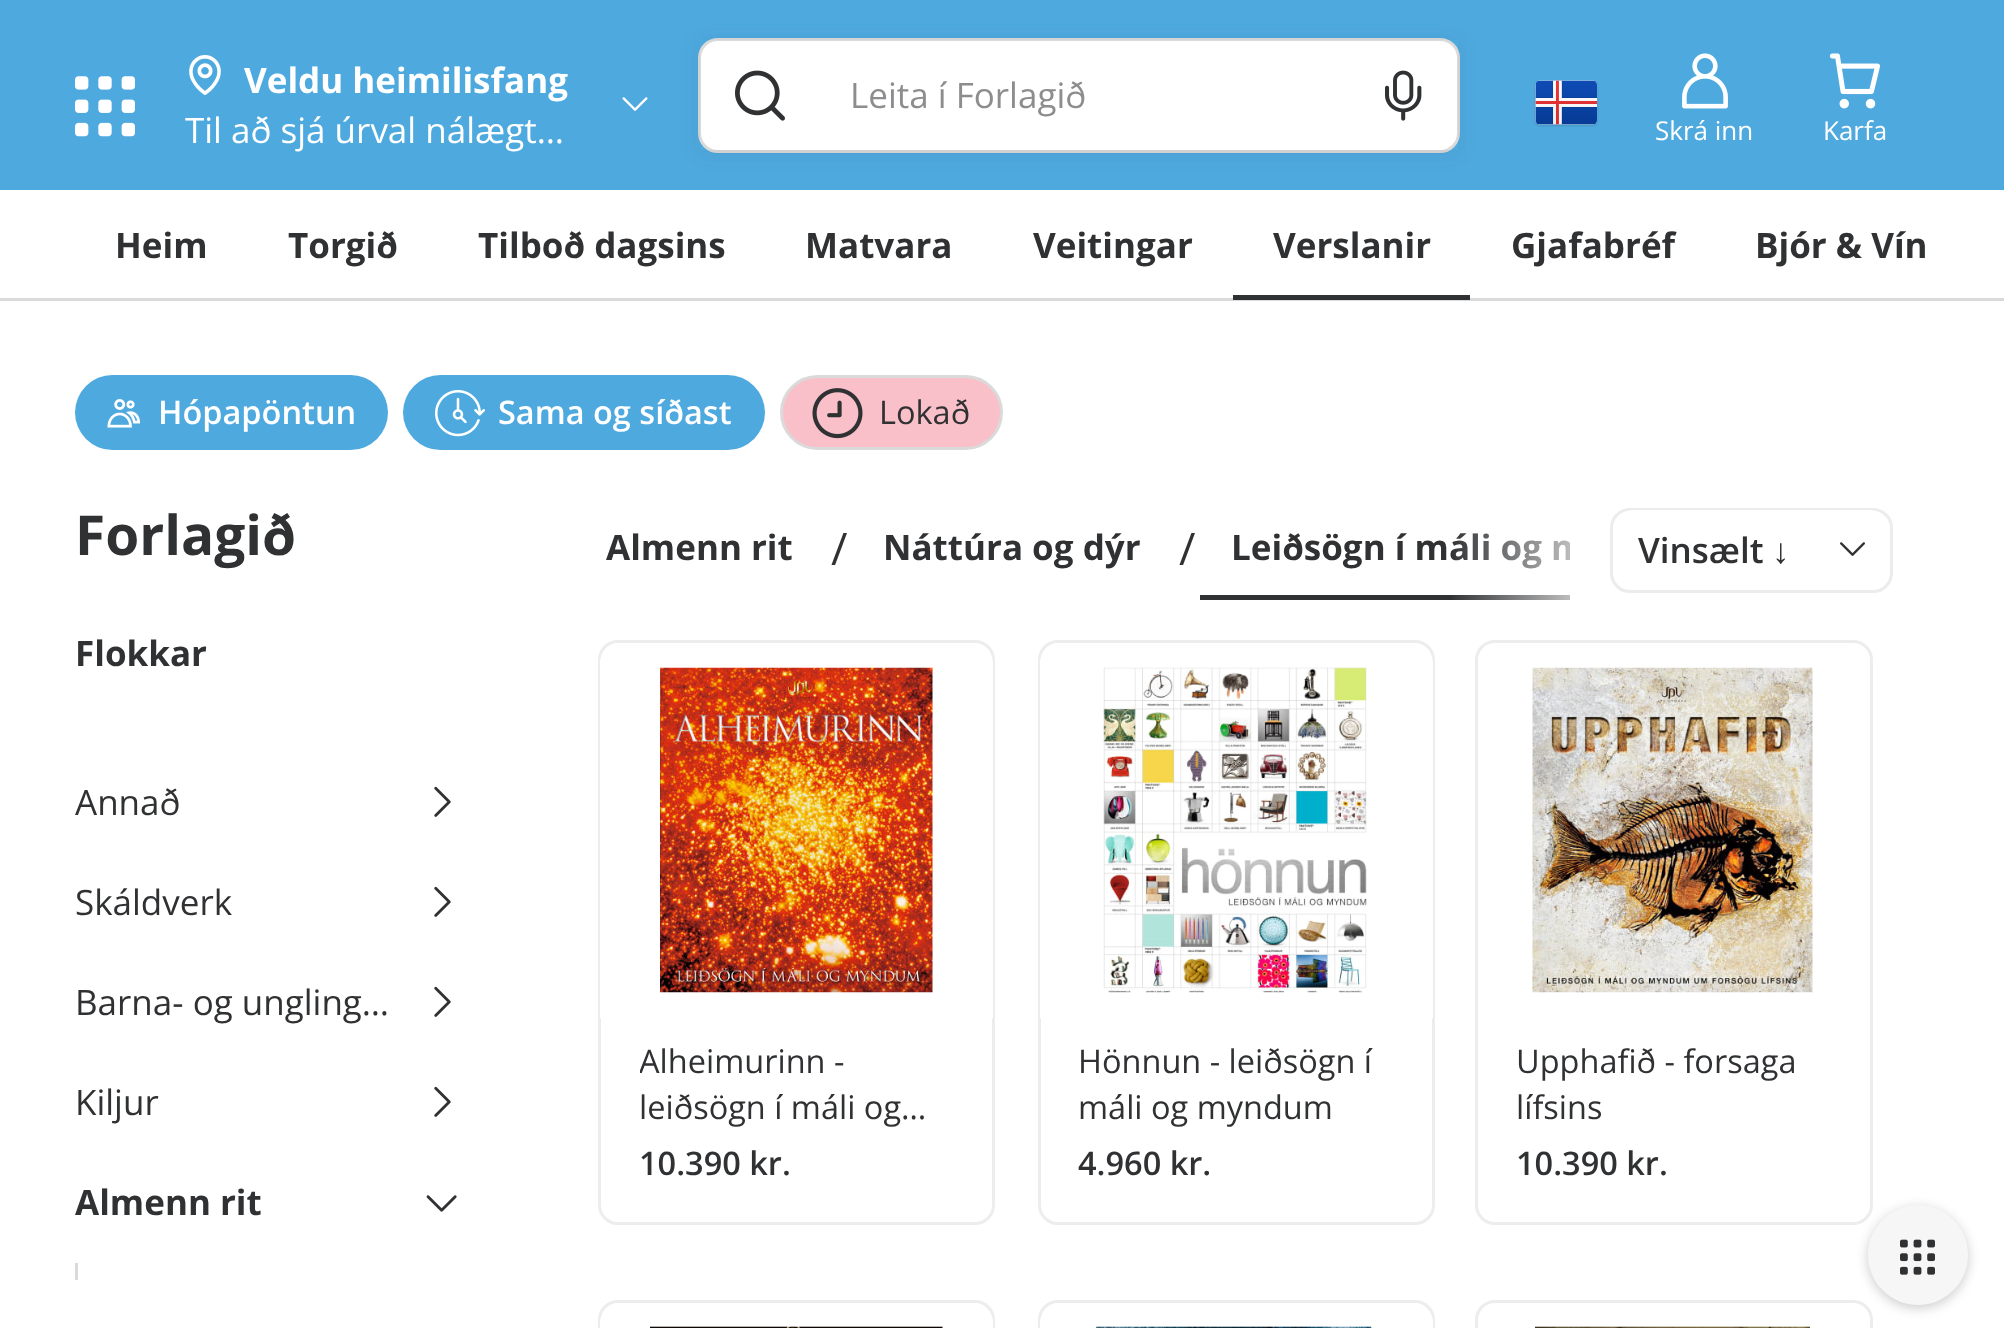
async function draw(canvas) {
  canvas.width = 2004
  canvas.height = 1328
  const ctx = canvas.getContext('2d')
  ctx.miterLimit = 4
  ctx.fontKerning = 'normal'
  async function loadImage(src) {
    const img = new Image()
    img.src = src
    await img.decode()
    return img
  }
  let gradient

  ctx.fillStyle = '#fff'
  ctx.fillRect(0, 0, 2004, 1328)
  ctx.fillStyle = '#4ea9df'
  ctx.fillRect(0, 0, 2004, 190)
  ctx.drawImage(await loadImage('image0.png'), 75, 76, 60, 61)
  ctx.drawImage(await loadImage('image1.png'), 189, 55, 32, 40)
  ctx.font = 'bold 35px Open Sans'
  ctx.fillStyle = '#fff'
  ctx.fillText('Veldu heimilisfang', 244, 93)
  ctx.font = '35px Open Sans'
  ctx.fillText('Til að sjá úrval nálægt…', 185, 143)
  ctx.drawImage(await loadImage('image2.png'), 622, 97, 26, 14)
  ctx.beginPath()
  ctx.roundRect(699.5, 39.5, 759, 112, 18.5)
  ctx.fill()
  ctx.strokeStyle = '#dadada'
  ctx.lineWidth = 3
  ctx.stroke()
  ctx.save()
  ctx.beginPath()
  ctx.moveTo(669, 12)
  ctx.lineTo(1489, 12)
  ctx.lineTo(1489, 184)
  ctx.lineTo(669, 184)
  ctx.closePath()
  ctx.moveTo(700, 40)
  ctx.lineTo(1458, 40)
  ctx.lineTo(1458, 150)
  ctx.lineTo(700, 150)
  ctx.closePath()
  ctx.clip('evenodd')
  ctx.fillStyle = '#3031331a'
  ctx.filter = 'blur(10px)'
  ctx.beginPath()
  ctx.rect(700, 43, 758, 110)
  ctx.fill()
  ctx.filter = 'none'
  ctx.restore()
  ctx.drawImage(await loadImage('image3.png'), 735, 70, 50, 51)
  ctx.fillStyle = '#8d8d8f'
  ctx.fillText('Leita í Forlagið', 850, 108)
  ctx.drawImage(await loadImage('image4.png'), 1385, 70, 37, 51)
  ctx.drawImage(await loadImage('image5.png'), 1534, 80, 65, 47)
  ctx.drawImage(await loadImage('image6.png'), 1682, 53, 46, 56)
  ctx.font = '26px Open Sans'
  ctx.fillStyle = '#fff'
  ctx.fillText('Skrá inn', 1655, 140)
  ctx.drawImage(await loadImage('image7.png'), 1830, 53, 50, 56)
  ctx.fillText('Karfa', 1823, 140)
  ctx.fillStyle = '#dadada'
  ctx.fillRect(0, 298, 2004, 3)
  ctx.font = 'bold 35px Open Sans'
  ctx.fillStyle = '#303133'
  ctx.fillText('Heim', 115, 258)
  ctx.fillText('Torgið', 288, 258)
  ctx.fillText('Tilboð dagsins', 478, 258)
  ctx.fillText('Matvara', 805, 258)
  ctx.fillText('Veitingar', 1033, 258)
  ctx.fillRect(1233, 295, 237, 5)
  ctx.fillText('Verslanir', 1273, 258)
  ctx.fillText('Gjafabréf', 1511, 258)
  ctx.fillText('Bjór & Vín', 1755, 258)
  ctx.fillStyle = '#4ea9df'
  ctx.beginPath()
  ctx.roundRect(75, 375, 313, 75, 37.5)
  ctx.fill()
  ctx.drawImage(await loadImage('image8.png'), 107, 399, 33, 29)
  ctx.font = '600 32.5px Open Sans'
  ctx.fillStyle = '#fff'
  ctx.fillText('Hópapöntun', 158, 424)
  ctx.fillStyle = '#4ea9df'
  ctx.beginPath()
  ctx.roundRect(403, 375, 362, 75, 37.5)
  ctx.fill()
  ctx.drawImage(await loadImage('image9.png'), 435, 390, 50, 47)
  ctx.fillStyle = '#fff'
  ctx.fillText('Sama og síðast', 498, 424)
  ctx.fillStyle = '#f9c0ca'
  ctx.beginPath()
  ctx.roundRect(781.5, 376.5, 220, 72, 36)
  ctx.fill()
  ctx.stroke()
  ctx.drawImage(await loadImage('image10.png'), 812, 388, 51, 51)
  ctx.font = '32.5px Open Sans'
  ctx.fillStyle = '#303133'
  ctx.fillText('Lokað', 879, 424)
  ctx.font = 'bold 55px Open Sans'
  ctx.fillText('Forlagið', 75, 555)
  ctx.font = 'bold 35px Open Sans'
  ctx.fillText('Flokkar', 75, 666)
  ctx.font = '35px Open Sans'
  ctx.fillText('Annað', 75, 815)
  ctx.drawImage(await loadImage('image11.png'), 434, 786, 17, 31)
  ctx.fillText('Skáldverk', 75, 915)
  ctx.drawImage(await loadImage('image11.png'), 434, 886, 17, 31)
  ctx.fillText('Barna- og ungling…', 75, 1015)
  ctx.drawImage(await loadImage('image11.png'), 434, 986, 17, 31)
  ctx.fillText('Kiljur', 75, 1115)
  ctx.drawImage(await loadImage('image11.png'), 434, 1086, 17, 31)
  ctx.font = 'bold 35px Open Sans'
  ctx.fillText('Almenn rit', 75, 1215)
  ctx.drawImage(await loadImage('image12.png'), 426, 1195, 31, 17)
  ctx.fillStyle = '#dadada'
  ctx.fillRect(75, 1263, 3, 17)
  ctx.fillStyle = '#303133'
  ctx.fillText('Almenn rit', 606, 560)
  ctx.font = '45px Open Sans'
  ctx.fillText('/', 831, 565)
  ctx.font = 'bold 35px Open Sans'
  ctx.fillText('Náttúra og dýr', 883, 560)
  ctx.font = '45px Open Sans'
  ctx.fillText('/', 1179, 565)
  ctx.fillRect(1200, 595, 370, 5)
  ctx.save()
  ctx.beginPath()
  ctx.rect(578, 500, 992, 100)
  ctx.clip()
  ctx.font = 'bold 35px Open Sans'
  ctx.fillText('Leiðsögn í máli og m', 1231, 560)
  ctx.restore()
  gradient = ctx.createLinearGradient(1573, 550, 1448, 550)
  gradient.addColorStop(0, '#ffffffb0')
  gradient.addColorStop(1, '#ffffff00')
  ctx.fillStyle = gradient
  ctx.fillRect(1452, 533, 118, 67)
  ctx.beginPath()
  ctx.roundRect(1611.5, 509.5, 280, 82, 18.5)
  ctx.strokeStyle = '#ececec'
  ctx.stroke()
  ctx.save()
  ctx.beginPath()
  ctx.roundRect(1613, 510, 277, 80, 18)
  ctx.clip()
  ctx.fillStyle = '#fff'
  ctx.beginPath()
  ctx.roundRect(1613, 510, 277, 80, 20)
  ctx.fill()
  ctx.restore()
  ctx.font = '600 35px Open Sans'
  ctx.fillStyle = '#303133'
  ctx.fillText('Vinsælt', 1638, 563)
  ctx.font = 'bold 35px Liberation Sans'
  ctx.fillText('↓', 1772, 563)
  ctx.drawImage(await loadImage('image13.png'), 1840, 542, 25, 14)
  ctx.beginPath()
  ctx.roundRect(599.5, 641.5, 394, 582, 18.5)
  ctx.strokeStyle = '#ededed'
  ctx.stroke()
  ctx.fillStyle = '#fff'
  ctx.beginPath()
  ctx.roundRect(600, 643, 393, 375, [20, 20, 0, 0])
  ctx.fill()
  ctx.drawImage(await loadImage('image14.png'), 660, 667, 273, 326)
  ctx.save()
  ctx.beginPath()
  ctx.rect(640, 1038, 313, 97)
  ctx.clip()
  ctx.font = '32.5px Open Sans'
  ctx.fillStyle = '#303133'
  ctx.fillText('Alheimurinn -', 639, 1073)
  ctx.restore()
  ctx.font = '32.5px Open Sans'
  ctx.fillStyle = '#303133'
  ctx.fillText('leiðsögn í máli og…', 639, 1119)
  ctx.font = '600 32.5px Open Sans'
  ctx.fillText('10.390 kr.', 639, 1175)
  ctx.beginPath()
  ctx.roundRect(1039.5, 641.5, 394, 582, 18.5)
  ctx.stroke()
  ctx.fillStyle = '#fff'
  ctx.beginPath()
  ctx.roundRect(1040, 643, 393, 375, [20, 20, 0, 0])
  ctx.fill()
  ctx.drawImage(await loadImage('image15.png'), 1103, 667, 264, 326)
  ctx.font = '32.5px Open Sans'
  ctx.fillStyle = '#303133'
  ctx.fillText('Hönnun - leiðsögn í', 1078, 1073)
  ctx.fillText('máli og myndum', 1078, 1119)
  ctx.font = '600 32.5px Open Sans'
  ctx.fillText('4.960 kr.', 1078, 1175)
  ctx.beginPath()
  ctx.roundRect(1476.5, 641.5, 395, 582, 18.5)
  ctx.stroke()
  ctx.drawImage(await loadImage('image16.png'), 1532, 667, 281, 326)
  ctx.font = '32.5px Open Sans'
  ctx.fillText('Upphafið - forsaga', 1516, 1073)
  ctx.fillText('lífsins', 1516, 1119)
  ctx.font = '600 32.5px Open Sans'
  ctx.fillText('10.390 kr.', 1516, 1175)
  ctx.beginPath()
  ctx.roundRect(599.5, 1301.5, 394, 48, 18.5)
  ctx.stroke()
  ctx.fillStyle = '#fff'
  ctx.beginPath()
  ctx.moveTo(620, 1303)
  ctx.lineTo(973, 1303)
  ctx.bezierCurveTo(984, 1303, 993, 1312, 993, 1323)
  ctx.lineTo(993, 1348)
  ctx.lineTo(600, 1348)
  ctx.lineTo(600, 1323)
  ctx.bezierCurveTo(600, 1312, 609, 1303, 620, 1303)
  ctx.closePath()
  ctx.fill()
  ctx.drawImage(await loadImage('image17.png'), 650, 1326, 293, 2)
  ctx.beginPath()
  ctx.roundRect(1039.5, 1301.5, 394, 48, 18.5)
  ctx.stroke()
  ctx.beginPath()
  ctx.moveTo(1060, 1303)
  ctx.lineTo(1413, 1303)
  ctx.bezierCurveTo(1424, 1303, 1433, 1312, 1433, 1323)
  ctx.lineTo(1433, 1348)
  ctx.lineTo(1040, 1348)
  ctx.lineTo(1040, 1323)
  ctx.bezierCurveTo(1040, 1312, 1049, 1303, 1060, 1303)
  ctx.closePath()
  ctx.fill()
  ctx.drawImage(await loadImage('image18.png'), 1096, 1326, 276, 2)
  ctx.beginPath()
  ctx.roundRect(1476.5, 1301.5, 395, 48, 18.5)
  ctx.stroke()
  ctx.drawImage(await loadImage('image19.png'), 1535, 1326, 275, 2)
  ctx.fillStyle = '#00000033'
  ctx.filter = 'blur(6px)'
  ctx.beginPath()
  ctx.roundRect(1868, 1208, 100, 100, 50)
  ctx.fill()
  ctx.filter = 'none'
  ctx.fillStyle = '#f6f6f6'
  ctx.beginPath()
  ctx.arc(1918, 1255, 50, 0, 2 * Math.PI)
  ctx.fill()
  ctx.drawImage(await loadImage('image20.png'), 1900, 1239, 35, 36)
}

draw(document.querySelector('canvas'))
